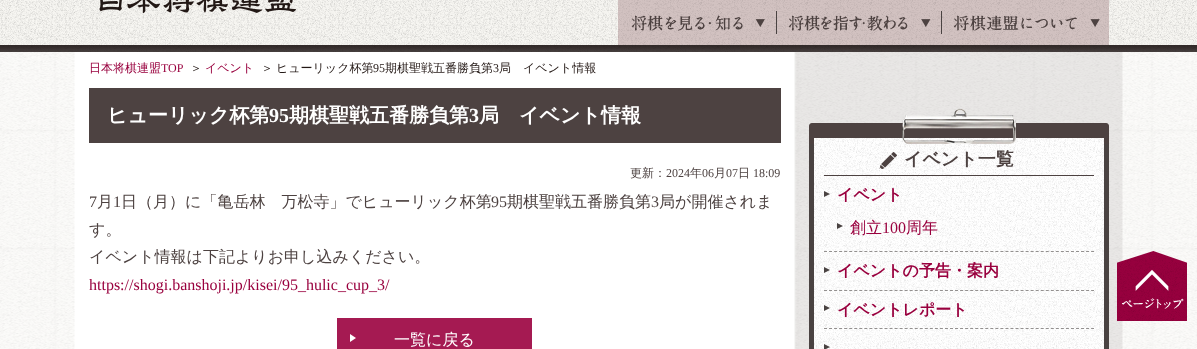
async function draw(canvas) {
  canvas.width = 1197
  canvas.height = 349
  const ctx = canvas.getContext('2d')
  ctx.miterLimit = 4
  ctx.fontKerning = 'normal'
  async function loadImage(src) {
    const img = new Image()
    img.src = src
    await img.decode()
    return img
  }

  ctx.fillStyle = '#fff'
  ctx.fillRect(0, 0, 1197, 349)
  ctx.drawImage(await loadImage('image0.png'), 0, 52, 1197, 297)
  ctx.drawImage(await loadImage('image1.png'), 0, 0, 1197, 45)
  ctx.drawImage(await loadImage('image2.png'), 99, 0, 197, 13)
  ctx.drawImage(await loadImage('image3.png'), 618, 0, 158, 45)
  ctx.drawImage(await loadImage('image4.png'), 776, 0, 165, 45)
  ctx.fillStyle = '#4a4342'
  ctx.fillRect(776, 11, 1, 23)
  ctx.drawImage(await loadImage('image5.png'), 941, 0, 168, 45)
  ctx.fillRect(941, 11, 1, 23)
  ctx.drawImage(await loadImage('image6.png'), 0, 45, 1197, 7)
  ctx.font = '500 12px WenQuanYi Zen Hei'
  ctx.fillStyle = '#99003e'
  ctx.fillText('日本将棋連盟', 89, 72)
  ctx.font = '12px Liberation Serif'
  ctx.fillText('TOP', 161, 72)
  ctx.font = '500 12px WenQuanYi Zen Hei'
  ctx.fillStyle = '#231815'
  ctx.fillText('＞', 190, 72)
  ctx.fillStyle = '#99003e'
  ctx.fillText('イベント', 205, 72)
  ctx.fillStyle = '#231815'
  ctx.fillText('＞', 261, 72)
  ctx.fillText('ヒューリック杯第', 276, 72)
  ctx.font = '12px Liberation Serif'
  ctx.fillText('95', 373, 72)
  ctx.font = '500 12px WenQuanYi Zen Hei'
  ctx.fillText('期棋聖戦五番勝負第', 385, 72)
  ctx.font = '12px Liberation Serif'
  ctx.fillText('3', 493, 72)
  ctx.font = '500 12px WenQuanYi Zen Hei'
  ctx.fillText('局　イベント情報', 499, 72)
  ctx.fillStyle = '#4d4241'
  ctx.fillRect(89, 88, 692, 55)
  ctx.font = 'bold 20px WenQuanYi Zen Hei'
  ctx.fillStyle = '#fff'
  ctx.fillText('ヒューリック杯第', 107, 122)
  ctx.font = 'bold 20px Liberation Serif'
  ctx.fillText('95', 269, 122)
  ctx.font = 'bold 20px WenQuanYi Zen Hei'
  ctx.fillText('期棋聖戦五番勝負第', 289, 122)
  ctx.font = 'bold 20px Liberation Serif'
  ctx.fillText('3', 469, 122)
  ctx.font = 'bold 20px WenQuanYi Zen Hei'
  ctx.fillText('局　イベント情報', 479, 122)
  ctx.font = '500 12px WenQuanYi Zen Hei'
  ctx.fillStyle = '#4d4241'
  ctx.fillText('更新：', 630, 177)
  ctx.font = '12px Liberation Serif'
  ctx.fillText('2024', 666, 177)
  ctx.font = '500 12px WenQuanYi Zen Hei'
  ctx.fillText('年', 690, 177)
  ctx.font = '12px Liberation Serif'
  ctx.fillText('06', 702, 177)
  ctx.font = '500 12px WenQuanYi Zen Hei'
  ctx.fillText('月', 714, 177)
  ctx.font = '12px Liberation Serif'
  ctx.fillText('07', 726, 177)
  ctx.font = '500 12px WenQuanYi Zen Hei'
  ctx.fillText('日', 738, 177)
  ctx.font = '12px Liberation Serif'
  ctx.fillText('18:09', 753, 177)
  ctx.font = '16px Liberation Serif'
  ctx.fillText('7', 89, 207)
  ctx.font = '500 16px WenQuanYi Zen Hei'
  ctx.fillText('月', 97, 207)
  ctx.font = '16px Liberation Serif'
  ctx.fillText('1', 113, 207)
  ctx.font = '500 16px WenQuanYi Zen Hei'
  ctx.fillText('日（月）に「亀岳林　万松寺」でヒューリック杯第', 121, 207)
  ctx.font = '16px Liberation Serif'
  ctx.fillText('95', 491, 207)
  ctx.font = '500 16px WenQuanYi Zen Hei'
  ctx.fillText('期棋聖戦五番勝負第', 507, 207)
  ctx.font = '16px Liberation Serif'
  ctx.fillText('3', 651, 207)
  ctx.font = '500 16px WenQuanYi Zen Hei'
  ctx.fillText('局が開催されま', 659, 207)
  ctx.fillText('す。', 89, 235)
  ctx.fillText('イベント情報は下記よりお申し込みください。', 89, 262)
  ctx.font = '16px Liberation Serif'
  ctx.fillStyle = '#99003e'
  ctx.fillText('https://shogi.banshoji.jp/kisei/95_hulic_cup_3/', 89, 290)
  ctx.fillStyle = '#a51a52'
  ctx.fillRect(337, 318, 195, 31)
  ctx.fillStyle = '#fff'
  ctx.beginPath()
  ctx.moveTo(350, 342)
  ctx.lineTo(350, 334)
  ctx.lineTo(356, 338)
  ctx.closePath()
  ctx.fill()
  ctx.font = '500 16px WenQuanYi Zen Hei'
  ctx.fillText('一覧に戻る', 394, 345)
  ctx.drawImage(await loadImage('image7.png'), 809, 108, 300, 36)
  ctx.drawImage(await loadImage('image8.png'), 814, 144, 290, 205)
  ctx.fillStyle = '#4a4342'
  ctx.beginPath()
  ctx.moveTo(809, 144)
  ctx.lineTo(1109, 144)
  ctx.lineTo(1109, 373)
  ctx.bezierCurveTo(1109, 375, 1108, 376, 1106, 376)
  ctx.lineTo(812, 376)
  ctx.bezierCurveTo(810, 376, 809, 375, 809, 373)
  ctx.closePath()
  ctx.moveTo(814, 144)
  ctx.lineTo(1104, 144)
  ctx.lineTo(1104, 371)
  ctx.lineTo(814, 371)
  ctx.closePath()
  ctx.fill('evenodd')
  ctx.fillStyle = '#4d4241'
  ctx.fillRect(824, 175, 270, 1)
  ctx.drawImage(await loadImage('image9.png'), 879, 152, 18, 17)
  ctx.font = 'bold 18px WenQuanYi Zen Hei'
  ctx.fillText('イベント一覧', 904, 165)
  ctx.beginPath()
  ctx.moveTo(824, 251.5)
  ctx.lineTo(1094, 251.5)
  ctx.strokeStyle = '#93908f'
  ctx.setLineDash([3, 2.04])
  ctx.stroke()
  ctx.fillStyle = '#4a4342'
  ctx.beginPath()
  ctx.moveTo(824, 197)
  ctx.lineTo(824, 191)
  ctx.lineTo(830, 194)
  ctx.closePath()
  ctx.fill()
  ctx.font = 'bold 16px WenQuanYi Zen Hei'
  ctx.fillStyle = '#99003e'
  ctx.fillText('イベント', 837, 200)
  ctx.fillStyle = '#4a4342'
  ctx.beginPath()
  ctx.moveTo(837, 229)
  ctx.lineTo(837, 223)
  ctx.lineTo(843, 226)
  ctx.closePath()
  ctx.fill()
  ctx.font = '500 16px WenQuanYi Zen Hei'
  ctx.fillStyle = '#99003e'
  ctx.fillText('創立', 850, 233)
  ctx.font = '16px Liberation Serif'
  ctx.fillText('100', 882, 233)
  ctx.font = '500 16px WenQuanYi Zen Hei'
  ctx.fillText('周年', 906, 233)
  ctx.beginPath()
  ctx.moveTo(824, 290.5)
  ctx.lineTo(1094, 290.5)
  ctx.stroke()
  ctx.fillStyle = '#4a4342'
  ctx.beginPath()
  ctx.moveTo(824, 273)
  ctx.lineTo(824, 267)
  ctx.lineTo(830, 270)
  ctx.closePath()
  ctx.fill()
  ctx.font = 'bold 16px WenQuanYi Zen Hei'
  ctx.fillStyle = '#99003e'
  ctx.fillText('イベントの予告・案内', 837, 276)
  ctx.beginPath()
  ctx.moveTo(824, 328.5)
  ctx.lineTo(1094, 328.5)
  ctx.stroke()
  ctx.fillStyle = '#4a4342'
  ctx.beginPath()
  ctx.moveTo(824, 311)
  ctx.lineTo(824, 305)
  ctx.lineTo(830, 308)
  ctx.closePath()
  ctx.moveTo(824, 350)
  ctx.lineTo(824, 344)
  ctx.lineTo(830, 347)
  ctx.closePath()
  ctx.fill()
  ctx.fillStyle = '#99003e'
  ctx.fillText('イベントレポート', 837, 315)
  ctx.drawImage(await loadImage('image10.png'), 1117, 251, 70, 70)
}

draw(document.querySelector('canvas'))
